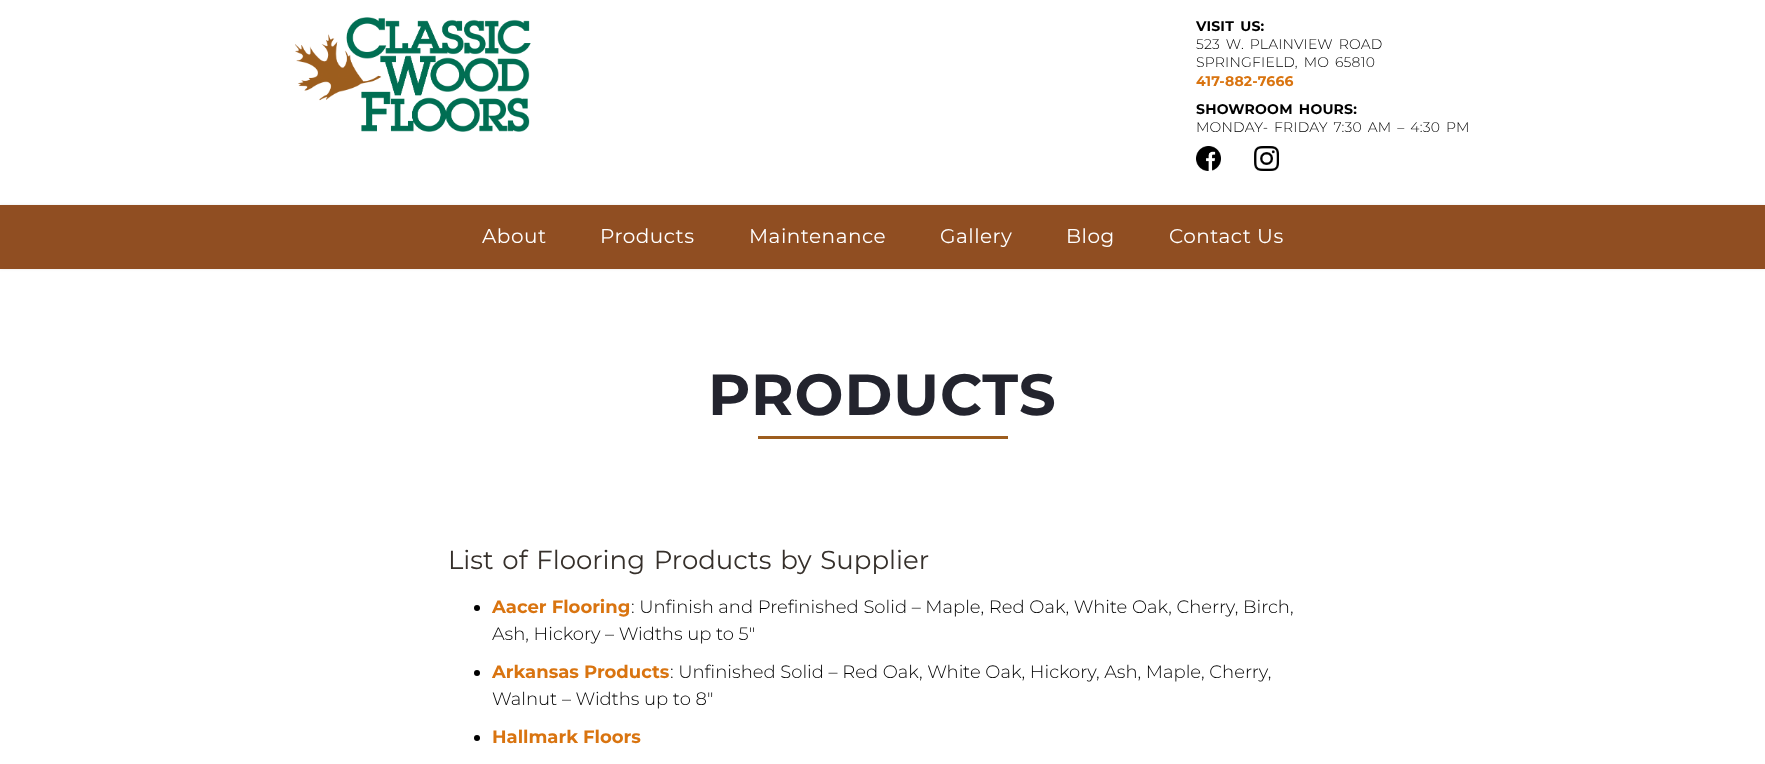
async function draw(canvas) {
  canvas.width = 1765
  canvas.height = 764
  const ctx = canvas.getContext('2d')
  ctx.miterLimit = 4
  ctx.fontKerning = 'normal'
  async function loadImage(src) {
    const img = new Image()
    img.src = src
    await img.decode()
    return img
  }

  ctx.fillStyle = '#fff'
  ctx.fillRect(0, 0, 1765, 764)
  ctx.drawImage(await loadImage('image0.png'), 295, 17, 236, 115)
  ctx.letterSpacing = '0.2px'
  ctx.wordSpacing = '2px'
  ctx.font = 'bold 14px Montserrat'
  ctx.fillStyle = '#000'
  ctx.fillText('VISIT US:', 1196, 31)
  ctx.font = '300 14px Montserrat'
  ctx.fillText('523 W. PLAINVIEW ROAD', 1196, 49)
  ctx.fillText('SPRINGFIELD, MO 65810', 1196, 67)
  ctx.wordSpacing = '0px'
  ctx.font = 'bold 14px Montserrat'
  ctx.fillStyle = '#d97410'
  ctx.fillText('417-882-7666', 1196, 86)
  ctx.wordSpacing = '2px'
  ctx.fillStyle = '#000'
  ctx.fillText('SHOWROOM HOURS:', 1196, 114)
  ctx.font = '300 14px Montserrat'
  ctx.fillText('MONDAY- FRIDAY 7:30 AM – 4:30 PM', 1196, 132)
  ctx.drawImage(await loadImage('image1.png'), 1196, 146, 25, 25)
  ctx.drawImage(await loadImage('image2.png'), 1254, 146, 25, 25)
  ctx.fillStyle = '#00000017'
  ctx.filter = 'blur(1.5px)'
  ctx.beginPath()
  ctx.rect(0, 205, 1765, 64)
  ctx.fill()
  ctx.filter = 'none'
  ctx.fillStyle = '#904e22'
  ctx.fillRect(0, 205, 1765, 64)
  ctx.letterSpacing = '0.5px'
  ctx.wordSpacing = '0px'
  ctx.font = '20px Montserrat'
  ctx.fillStyle = '#fff'
  ctx.fillText('About', 482, 243)
  ctx.fillText('Products', 600, 243)
  ctx.fillText('Maintenance', 749, 243)
  ctx.fillText('Gallery', 940, 243)
  ctx.fillText('Blog', 1066, 243)
  ctx.fillText('Contact Us', 1169, 243)
  ctx.letterSpacing = '1px'
  ctx.font = 'bold 58px Montserrat'
  ctx.fillStyle = '#23242e'
  ctx.fillText('PRODUCTS', 708, 415)
  ctx.fillStyle = '#9d5d1e'
  ctx.fillRect(758, 436, 250, 3)
  ctx.letterSpacing = '0px'
  ctx.wordSpacing = '2px'
  ctx.font = '26px Montserrat'
  ctx.fillStyle = '#36302b'
  ctx.fillText('List of Flooring Products by Supplier', 448, 569)
  ctx.fillStyle = '#000'
  ctx.beginPath()
  ctx.arc(477, 608, 3, 0, 2 * Math.PI)
  ctx.fill()
  ctx.wordSpacing = '0px'
  ctx.font = 'bold 18px Montserrat'
  ctx.fillStyle = '#d97410'
  ctx.fillText('Aacer Flooring', 492, 613)
  ctx.font = '300 18px Montserrat'
  ctx.fillStyle = '#000'
  ctx.fillText(': Unfinish and Prefinished Solid – Maple, Red Oak, White Oak, Cherry, Birch,', 631, 613)
  ctx.fillText('Ash, Hickory – Widths up to 5″', 492, 640)
  ctx.beginPath()
  ctx.arc(477, 673, 3, 0, 2 * Math.PI)
  ctx.fill()
  ctx.font = 'bold 18px Montserrat'
  ctx.fillStyle = '#d97410'
  ctx.fillText('Arkansas Products', 492, 678)
  ctx.font = '300 18px Montserrat'
  ctx.fillStyle = '#000'
  ctx.fillText(': Unfinished Solid – Red Oak, White Oak, Hickory, Ash, Maple, Cherry,', 670, 678)
  ctx.fillText('Walnut – Widths up to 8″', 492, 705)
  ctx.beginPath()
  ctx.arc(477, 738, 3, 0, 2 * Math.PI)
  ctx.fill()
  ctx.font = 'bold 18px Montserrat'
  ctx.fillStyle = '#d97410'
  ctx.fillText('Hallmark Floors', 492, 743)
}

draw(document.querySelector('canvas'))
